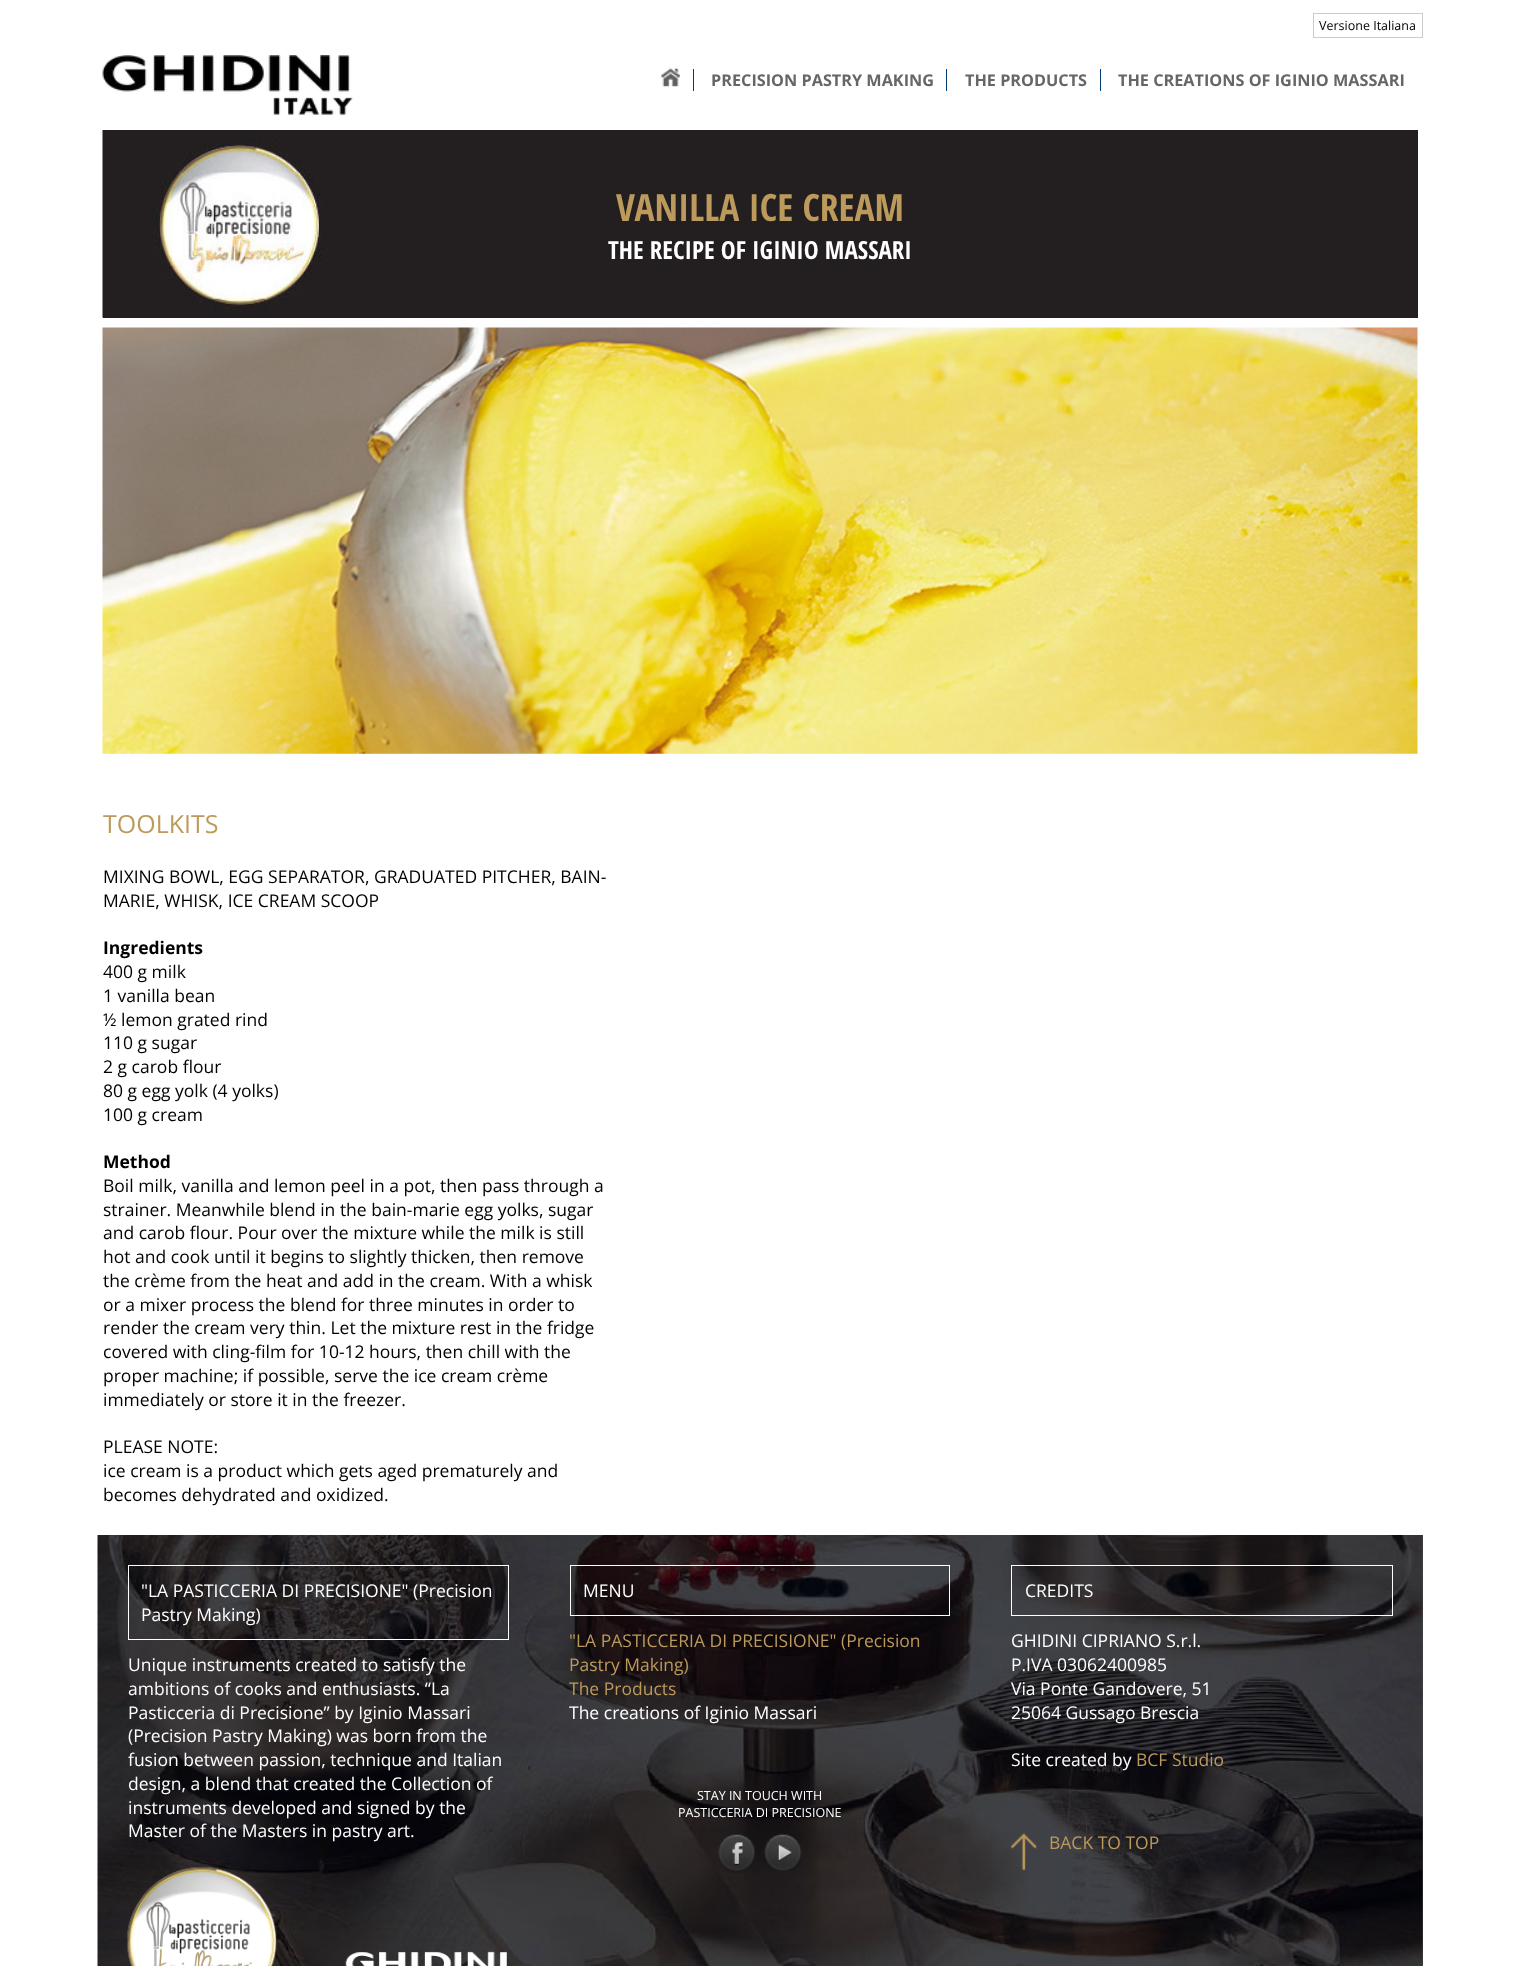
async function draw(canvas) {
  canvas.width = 1519
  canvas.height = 1966
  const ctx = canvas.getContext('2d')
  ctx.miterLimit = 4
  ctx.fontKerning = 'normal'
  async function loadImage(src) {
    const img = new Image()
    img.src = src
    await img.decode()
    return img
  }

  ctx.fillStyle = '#fff'
  ctx.fillRect(0, 0, 1519, 1966)
  ctx.strokeStyle = '#ccc'
  ctx.strokeRect(1313.5, 13.5, 109, 24)
  ctx.font = '12.5px Open Sans'
  ctx.fillStyle = '#000'
  ctx.fillText('Versione Italiana', 1319, 30)
  ctx.drawImage(await loadImage('image0.png'), 102, 55, 251, 60)
  ctx.fillStyle = '#003c77'
  ctx.fillRect(693, 69, 1, 22)
  ctx.drawImage(await loadImage('image1.png'), 661, 68, 19, 19)
  ctx.fillRect(946, 69, 1, 22)
  ctx.font = 'bold 16.25px Open Sans'
  ctx.fillStyle = '#666'
  ctx.fillText('PRECISION PASTRY MAKING', 711, 86)
  ctx.fillStyle = '#003c77'
  ctx.fillRect(1100, 69, 1, 22)
  ctx.fillStyle = '#666'
  ctx.fillText('THE PRODUCTS', 965, 86)
  ctx.fillText('THE CREATIONS OF IGINIO MASSARI', 1118, 86)
  ctx.fillStyle = '#231f20'
  ctx.fillRect(103, 130, 1315, 188)
  ctx.drawImage(await loadImage('image2.png'), 102, 130, 221, 188)
  ctx.font = 'bold 37.5px Open Sans Condensed'
  ctx.fillStyle = '#bc9a5c'
  ctx.fillText('VANILLA ICE CREAM', 616, 221)
  ctx.font = 'bold 25px Open Sans Condensed'
  ctx.fillStyle = '#fff'
  ctx.fillText('THE RECIPE OF IGINIO MASSARI', 608, 259)
  ctx.drawImage(await loadImage('image3.png'), 102, 327, 1316, 427)
  ctx.font = '25px Open Sans'
  ctx.fillStyle = '#bc9a5c'
  ctx.fillText('TOOLKITS', 103, 833)
  ctx.font = '17.5px Open Sans'
  ctx.fillStyle = '#000'
  ctx.fillText('MIXING BOWL, EGG SEPARATOR, GRADUATED PITCHER, BAIN-', 103, 883)
  ctx.fillText('MARIE, WHISK, ICE CREAM SCOOP', 103, 907)
  ctx.font = 'bold 17.5px Open Sans'
  ctx.fillText('Ingredients', 103, 954)
  ctx.font = '17.5px Open Sans'
  ctx.fillText('400 g milk', 103, 978)
  ctx.fillText('1 vanilla bean', 103, 1002)
  ctx.fillText('½ lemon grated rind', 103, 1026)
  ctx.fillText('110 g sugar', 103, 1049)
  ctx.fillText('2 g carob flour', 103, 1073)
  ctx.fillText('80 g egg yolk (4 yolks)', 103, 1097)
  ctx.fillText('100 g cream', 103, 1121)
  ctx.font = 'bold 17.5px Open Sans'
  ctx.fillText('Method', 103, 1168)
  ctx.font = '17.5px Open Sans'
  ctx.fillText('Boil milk, vanilla and lemon peel in a pot, then pass through a', 103, 1192)
  ctx.fillText('strainer. Meanwhile blend in the bain-marie egg yolks, sugar', 103, 1216)
  ctx.fillText('and carob flour. Pour over the mixture while the milk is still', 103, 1239)
  ctx.fillText('hot and cook until it begins to slightly thicken, then remove', 103, 1263)
  ctx.fillText('the crème from the heat and add in the cream. With a whisk', 103, 1287)
  ctx.fillText('or a mixer process the blend for three minutes in order to', 103, 1311)
  ctx.fillText('render the cream very thin. Let the mixture rest in the fridge', 103, 1334)
  ctx.fillText('covered with cling-film for 10-12 hours, then chill with the', 103, 1358)
  ctx.fillText('proper machine; if possible, serve the ice cream crème', 103, 1382)
  ctx.fillText('immediately or store it in the freezer.', 103, 1406)
  ctx.fillText('PLEASE NOTE:', 103, 1453)
  ctx.fillText('ice cream is a product which gets aged prematurely and', 103, 1477)
  ctx.fillText('becomes dehydrated and oxidized.', 103, 1501)
  ctx.fillStyle = '#464646'
  ctx.fillRect(1422, 1535, 1, 431)
  ctx.drawImage(await loadImage('image4.png'), 97, 1535, 1326, 431)
  ctx.strokeStyle = '#fff'
  ctx.strokeRect(128.5, 1565.5, 380, 74)
  ctx.fillStyle = '#fff'
  ctx.fillText('"LA PASTICCERIA DI PRECISIONE" (Precision', 141, 1597)
  ctx.fillText('Pastry Making)', 141, 1621)
  ctx.fillText('Unique instruments created to satisfy the', 128, 1671)
  ctx.fillText('ambitions of cooks and enthusiasts. “La', 128, 1695)
  ctx.fillText('Pasticceria di Precisione” by Iginio Massari', 128, 1719)
  ctx.fillText('(Precision Pastry Making) was born from the', 128, 1742)
  ctx.fillText('fusion between passion, technique and Italian', 128, 1766)
  ctx.fillText('design, a blend that created the Collection of', 128, 1790)
  ctx.fillText('instruments developed and signed by the', 128, 1814)
  ctx.fillText('Master of the Masters in pastry art.', 128, 1837)
  ctx.drawImage(await loadImage('image5.png'), 127, 1867, 380, 99)
  ctx.strokeRect(570.5, 1565.5, 379, 50)
  ctx.fillText('MENU', 583, 1597)
  ctx.fillStyle = '#bc9a5c'
  ctx.fillText('"LA PASTICCERIA DI PRECISIONE" (Precision', 569, 1647)
  ctx.fillText('Pastry Making)', 569, 1671)
  ctx.fillText('The Products', 569, 1695)
  ctx.fillStyle = '#fff'
  ctx.fillText('The creations of Iginio Massari', 569, 1719)
  ctx.font = '12.5px Open Sans'
  ctx.fillText('STAY IN TOUCH WITH', 697, 1800)
  ctx.fillText('PASTICCERIA DI PRECISIONE', 678, 1817)
  ctx.drawImage(await loadImage('image6.png'), 718, 1834, 37, 39)
  ctx.drawImage(await loadImage('image7.png'), 764, 1833, 38, 38)
  ctx.strokeRect(1011.5, 1565.5, 381, 50)
  ctx.font = '17.5px Open Sans'
  ctx.fillText('CREDITS', 1025, 1597)
  ctx.fillText('GHIDINI CIPRIANO S.r.l.', 1011, 1647)
  ctx.fillText('P.IVA 03062400985', 1011, 1671)
  ctx.fillText('Via Ponte Gandovere, 51', 1011, 1695)
  ctx.fillText('25064 Gussago Brescia', 1011, 1719)
  ctx.fillText('Site created by', 1011, 1766)
  ctx.fillStyle = '#bc9a5c'
  ctx.fillText('BCF Studio', 1136, 1766)
  ctx.drawImage(await loadImage('image8.png'), 1011, 1833, 26, 38)
  ctx.fillText('BACK TO TOP', 1049, 1849)
}

draw(document.querySelector('canvas'))
